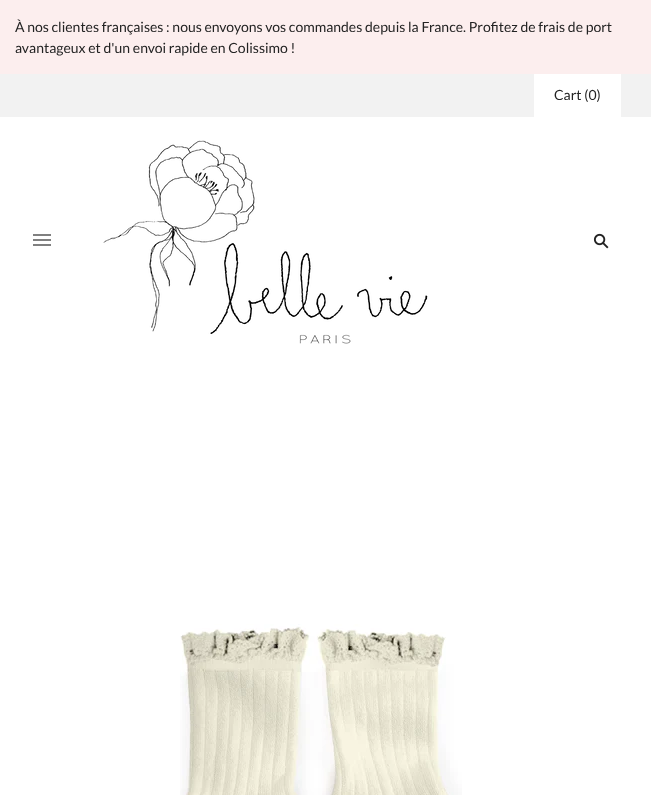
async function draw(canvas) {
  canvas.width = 651
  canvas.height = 795
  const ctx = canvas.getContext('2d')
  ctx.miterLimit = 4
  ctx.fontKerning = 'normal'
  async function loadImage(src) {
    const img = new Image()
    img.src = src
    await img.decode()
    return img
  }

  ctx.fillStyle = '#fff'
  ctx.fillRect(0, 0, 651, 795)
  ctx.fillStyle = '#fceeee'
  ctx.fillRect(0, 0, 651, 74)
  ctx.font = '14px Lato'
  ctx.fillStyle = '#232323'
  ctx.fillText('À nos clientes françaises : nous envoyons vos commandes depuis la France. Profitez de frais de port', 15, 32)
  ctx.fillText('avantageux et d\'un envoi rapide en Colissimo !', 15, 53)
  ctx.fillStyle = '#f2f2f2'
  ctx.fillRect(0, 74, 651, 43)
  ctx.fillStyle = '#fff'
  ctx.fillRect(534, 74, 87, 43)
  ctx.fillStyle = '#232323'
  ctx.fillText('Cart (0)', 554, 100)
  ctx.drawImage(await loadImage('image0.png'), 33, 234, 18, 12)
  ctx.drawImage(await loadImage('image1.png'), 103, 140, 325, 204)
  ctx.drawImage(await loadImage('image2.png'), 593, 233, 16, 16)
  ctx.drawImage(await loadImage('image3.png'), 180, 624, 282, 171)
}

draw(document.querySelector('canvas'))
